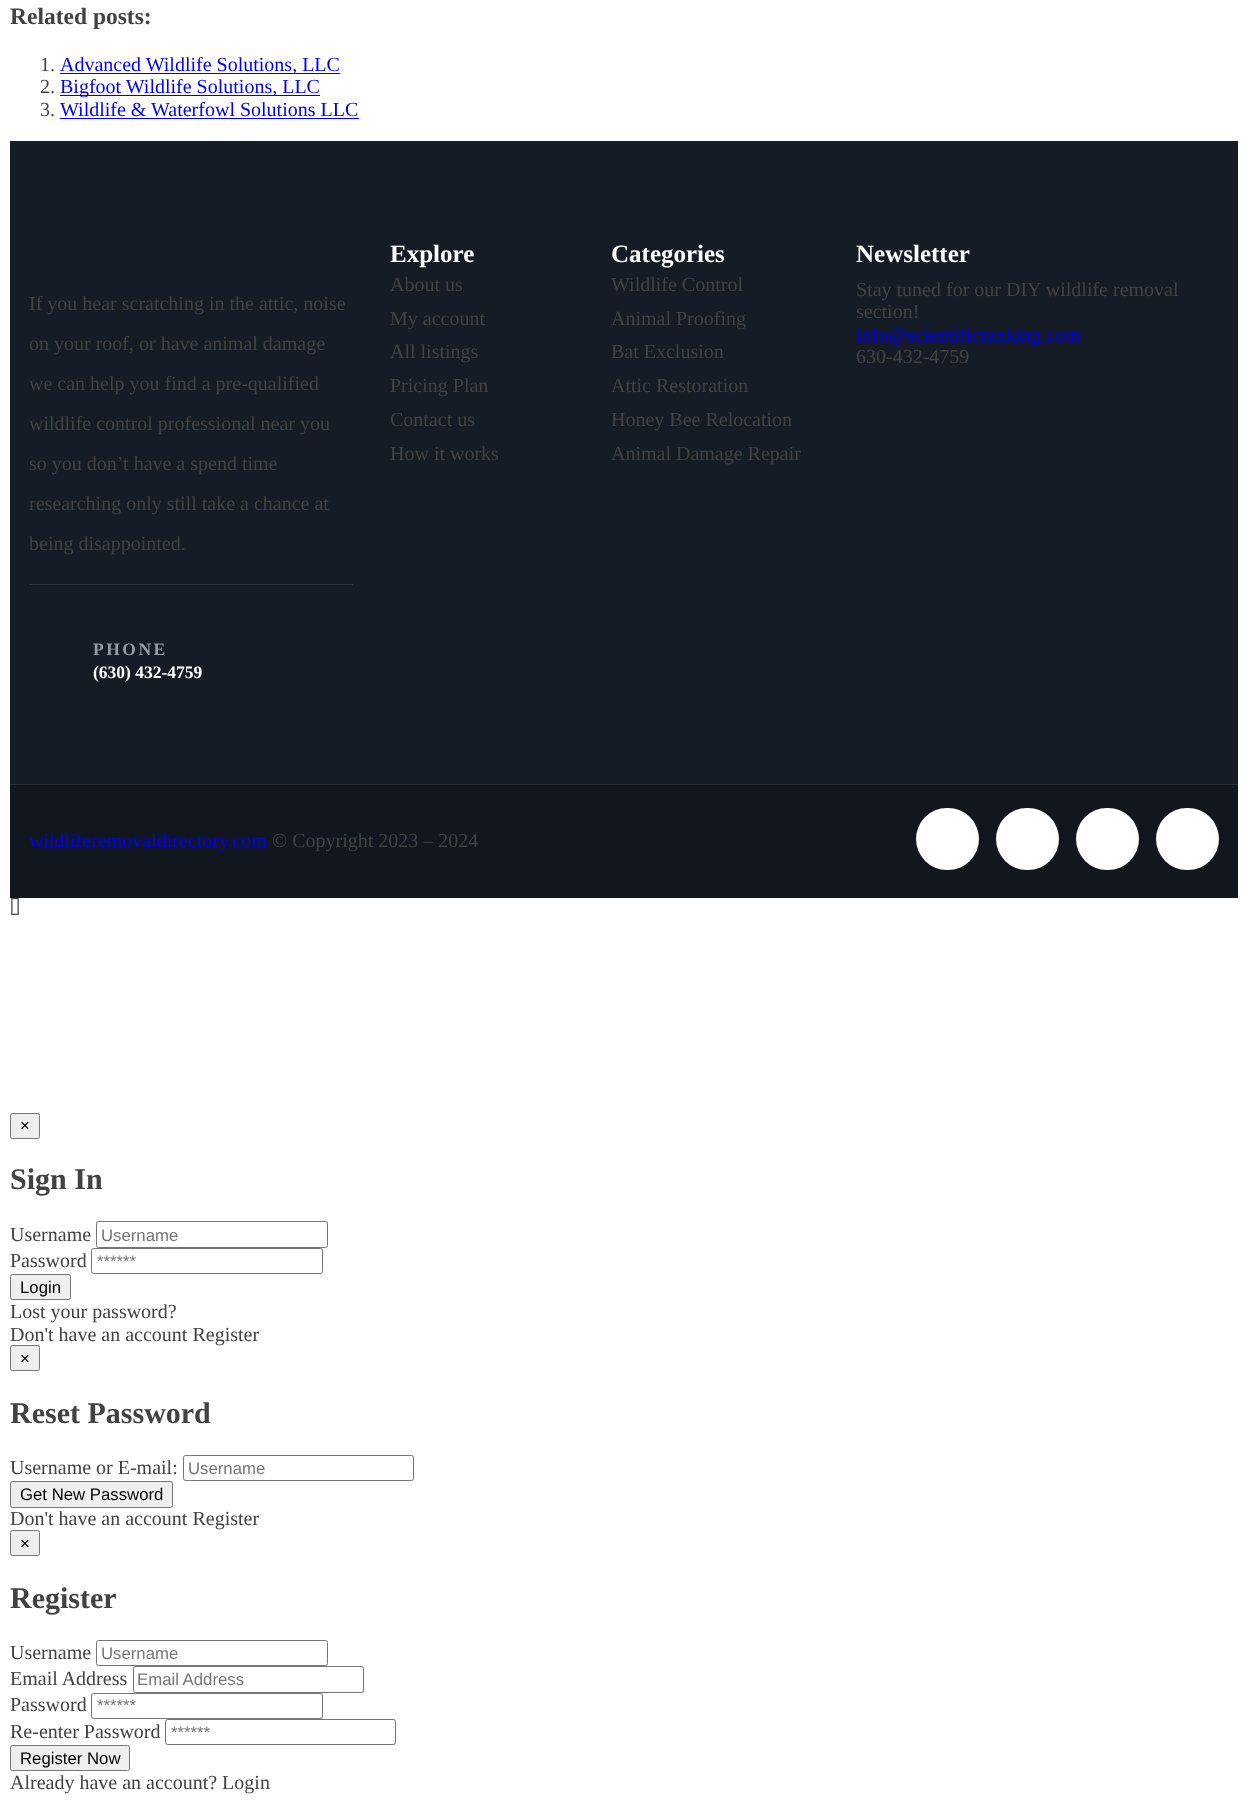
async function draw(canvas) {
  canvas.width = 1247
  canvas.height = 1803
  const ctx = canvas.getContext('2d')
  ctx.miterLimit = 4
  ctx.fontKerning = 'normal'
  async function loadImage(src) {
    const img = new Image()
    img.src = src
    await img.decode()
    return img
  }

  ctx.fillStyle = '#fff'
  ctx.fillRect(0, 0, 1247, 1803)
  ctx.font = 'bold 23.5px Liberation Serif'
  ctx.fillStyle = '#424242'
  ctx.fillText('Related posts:', 10, 24)
  ctx.font = '20px Liberation Serif'
  ctx.fillText('1.', 40, 71)
  ctx.fillStyle = '#00e'
  ctx.fillRect(60, 73, 280, 1)
  ctx.fillText('Advanced Wildlife Solutions, LLC', 60, 71)
  ctx.fillStyle = '#424242'
  ctx.fillText('2.', 40, 93)
  ctx.fillStyle = '#00e'
  ctx.fillRect(60, 95, 260, 1)
  ctx.fillText('Bigfoot Wildlife Solutions, LLC', 60, 93)
  ctx.fillStyle = '#424242'
  ctx.fillText('3.', 40, 116)
  ctx.fillStyle = '#00e'
  ctx.fillText('Wildlife & Waterfowl Solutions LLC', 60, 116)
  ctx.fillRect(60, 118, 299, 1)
  ctx.fillStyle = '#161c26'
  ctx.fillRect(10, 141, 1228, 643)
  ctx.fillStyle = '#424242'
  ctx.fillText('If you hear scratching in the attic, noise', 29, 310)
  ctx.fillText('on your roof, or have animal damage', 29, 350)
  ctx.fillText('we can help you find a pre-qualified', 29, 390)
  ctx.fillText('wildlife control professional near you', 29, 430)
  ctx.fillText('so you don’t have a spend time', 29, 470)
  ctx.fillText('researching only still take a chance at', 29, 510)
  ctx.fillText('being disappointed.', 29, 550)
  ctx.fillStyle = '#2d333c'
  ctx.fillRect(29, 584, 324, 1)
  ctx.letterSpacing = '2.5px'
  ctx.font = 'bold 17.5px Liberation Serif'
  ctx.fillStyle = '#959ca7'
  ctx.fillText('PHONE', 93, 655)
  ctx.letterSpacing = '0px'
  ctx.fillStyle = '#fff'
  ctx.fillText('(630) 432-4759', 93, 678)
  ctx.font = 'bold 25px Liberation Serif'
  ctx.fillText('Explore', 390, 262)
  ctx.font = '20px Liberation Serif'
  ctx.fillStyle = '#424242'
  ctx.fillText('About us', 390, 291)
  ctx.fillText('My account', 390, 325)
  ctx.fillText('All listings', 390, 358)
  ctx.fillText('Pricing Plan', 390, 392)
  ctx.fillText('Contact us', 390, 426)
  ctx.fillText('How it works', 390, 460)
  ctx.font = 'bold 25px Liberation Serif'
  ctx.fillStyle = '#fff'
  ctx.fillText('Categories', 611, 262)
  ctx.font = '20px Liberation Serif'
  ctx.fillStyle = '#424242'
  ctx.fillText('Wildlife Control', 611, 291)
  ctx.fillText('Animal Proofing', 611, 325)
  ctx.fillText('Bat Exclusion', 611, 358)
  ctx.fillText('Attic Restoration', 611, 392)
  ctx.fillText('Honey Bee Relocation', 611, 426)
  ctx.fillText('Animal Damage Repair', 611, 460)
  ctx.font = 'bold 25px Liberation Serif'
  ctx.fillStyle = '#fff'
  ctx.fillText('Newsletter', 856, 262)
  ctx.font = '20px Liberation Serif'
  ctx.fillStyle = '#424242'
  ctx.fillText('Stay tuned for our DIY wildlife removal', 856, 296)
  ctx.fillText('section!', 856, 318)
  ctx.fillStyle = '#00e'
  ctx.fillText('info@scientificranking.com', 856, 341)
  ctx.fillStyle = '#424242'
  ctx.fillText('630-432-4759', 856, 363)
  ctx.fillStyle = '#11161f'
  ctx.fillRect(10, 785, 1228, 113)
  ctx.fillStyle = '#292d35'
  ctx.fillRect(10, 784, 1228, 1)
  ctx.fillStyle = '#00e'
  ctx.fillText('wildliferemovaldirectory.com', 29, 847)
  ctx.fillStyle = '#424242'
  ctx.fillText('© Copyright 2023 – 2024', 272, 847)
  ctx.fillStyle = '#fff'
  ctx.beginPath()
  ctx.roundRect(916, 808, 63, 62, 31)
  ctx.fill()
  ctx.beginPath()
  ctx.roundRect(996, 808, 63, 62, 31)
  ctx.fill()
  ctx.beginPath()
  ctx.roundRect(1076, 808, 63, 62, 31)
  ctx.fill()
  ctx.beginPath()
  ctx.roundRect(1156, 808, 63, 62, 31)
  ctx.fill()
  ctx.drawImage(await loadImage('image0.png'), 11, 898, 8, 17)
  ctx.fillStyle = '#efefef'
  ctx.beginPath()
  ctx.roundRect(10.5, 1113.5, 29, 25, 2)
  ctx.fill()
  ctx.strokeStyle = '#767676'
  ctx.stroke()
  ctx.font = '16.75px Liberation Sans'
  ctx.fillStyle = '#000'
  ctx.fillText('×', 20, 1131)
  ctx.font = 'bold 30px Liberation Serif'
  ctx.fillStyle = '#424242'
  ctx.fillText('Sign In', 10, 1189)
  ctx.font = '20px Liberation Serif'
  ctx.fillText('Username', 10, 1241)
  ctx.beginPath()
  ctx.roundRect(96.5, 1221.5, 231, 26, 2)
  ctx.stroke()
  ctx.font = '16.75px Liberation Sans'
  ctx.fillStyle = '#757575'
  ctx.fillText('Username', 101, 1241)
  ctx.font = '20px Liberation Serif'
  ctx.fillStyle = '#424242'
  ctx.fillText('Password', 10, 1267)
  ctx.beginPath()
  ctx.roundRect(91.5, 1248.5, 231, 25, 2)
  ctx.stroke()
  ctx.font = '16.75px Liberation Sans'
  ctx.fillStyle = '#757575'
  ctx.fillText('******', 97, 1267)
  ctx.fillStyle = '#efefef'
  ctx.beginPath()
  ctx.roundRect(10.5, 1274.5, 60, 25, 2)
  ctx.fill()
  ctx.stroke()
  ctx.fillStyle = '#000'
  ctx.fillText('Login', 20, 1293)
  ctx.font = '20px Liberation Serif'
  ctx.fillStyle = '#424242'
  ctx.fillText('Lost your password?', 10, 1318)
  ctx.fillText('Don\'t have an account Register', 10, 1341)
  ctx.fillStyle = '#efefef'
  ctx.beginPath()
  ctx.roundRect(10.5, 1345.5, 29, 25, 2)
  ctx.fill()
  ctx.stroke()
  ctx.font = '16.75px Liberation Sans'
  ctx.fillStyle = '#000'
  ctx.fillText('×', 20, 1364)
  ctx.font = 'bold 30px Liberation Serif'
  ctx.fillStyle = '#424242'
  ctx.fillText('Reset Password', 10, 1423)
  ctx.font = '20px Liberation Serif'
  ctx.fillText('Username or E-mail:', 10, 1474)
  ctx.beginPath()
  ctx.roundRect(183.5, 1455.5, 230, 25, 2)
  ctx.stroke()
  ctx.font = '16.75px Liberation Sans'
  ctx.fillStyle = '#757575'
  ctx.fillText('Username', 188, 1474)
  ctx.fillStyle = '#efefef'
  ctx.beginPath()
  ctx.roundRect(10.5, 1481.5, 162, 26, 2)
  ctx.fill()
  ctx.stroke()
  ctx.fillStyle = '#000'
  ctx.fillText('Get New Password', 20, 1500)
  ctx.font = '20px Liberation Serif'
  ctx.fillStyle = '#424242'
  ctx.fillText('Don\'t have an account Register', 10, 1525)
  ctx.fillStyle = '#efefef'
  ctx.beginPath()
  ctx.roundRect(10.5, 1530.5, 29, 25, 2)
  ctx.fill()
  ctx.stroke()
  ctx.font = '16.75px Liberation Sans'
  ctx.fillStyle = '#000'
  ctx.fillText('×', 20, 1549)
  ctx.font = 'bold 30px Liberation Serif'
  ctx.fillStyle = '#424242'
  ctx.fillText('Register', 10, 1608)
  ctx.font = '20px Liberation Serif'
  ctx.fillText('Username', 10, 1659)
  ctx.beginPath()
  ctx.roundRect(96.5, 1640.5, 231, 25, 2)
  ctx.stroke()
  ctx.font = '16.75px Liberation Sans'
  ctx.fillStyle = '#757575'
  ctx.fillText('Username', 101, 1659)
  ctx.font = '20px Liberation Serif'
  ctx.fillStyle = '#424242'
  ctx.fillText('Email Address', 10, 1685)
  ctx.beginPath()
  ctx.roundRect(133.5, 1666.5, 230, 26, 2)
  ctx.stroke()
  ctx.font = '16.75px Liberation Sans'
  ctx.fillStyle = '#757575'
  ctx.fillText('Email Address', 137, 1685)
  ctx.font = '20px Liberation Serif'
  ctx.fillStyle = '#424242'
  ctx.fillText('Password', 10, 1711)
  ctx.beginPath()
  ctx.roundRect(91.5, 1693.5, 231, 25, 2)
  ctx.stroke()
  ctx.font = '16.75px Liberation Sans'
  ctx.fillStyle = '#757575'
  ctx.fillText('******', 97, 1711)
  ctx.font = '20px Liberation Serif'
  ctx.fillStyle = '#424242'
  ctx.fillText('Re-enter Password', 10, 1738)
  ctx.beginPath()
  ctx.roundRect(165.5, 1719.5, 230, 25, 2)
  ctx.stroke()
  ctx.font = '16.75px Liberation Sans'
  ctx.fillStyle = '#757575'
  ctx.fillText('******', 171, 1738)
  ctx.fillStyle = '#efefef'
  ctx.beginPath()
  ctx.roundRect(10.5, 1745.5, 119, 25, 2)
  ctx.fill()
  ctx.stroke()
  ctx.fillStyle = '#000'
  ctx.fillText('Register Now', 20, 1764)
  ctx.font = '20px Liberation Serif'
  ctx.fillStyle = '#424242'
  ctx.fillText('Already have an account? Login', 10, 1789)
}

draw(document.querySelector('canvas'))
